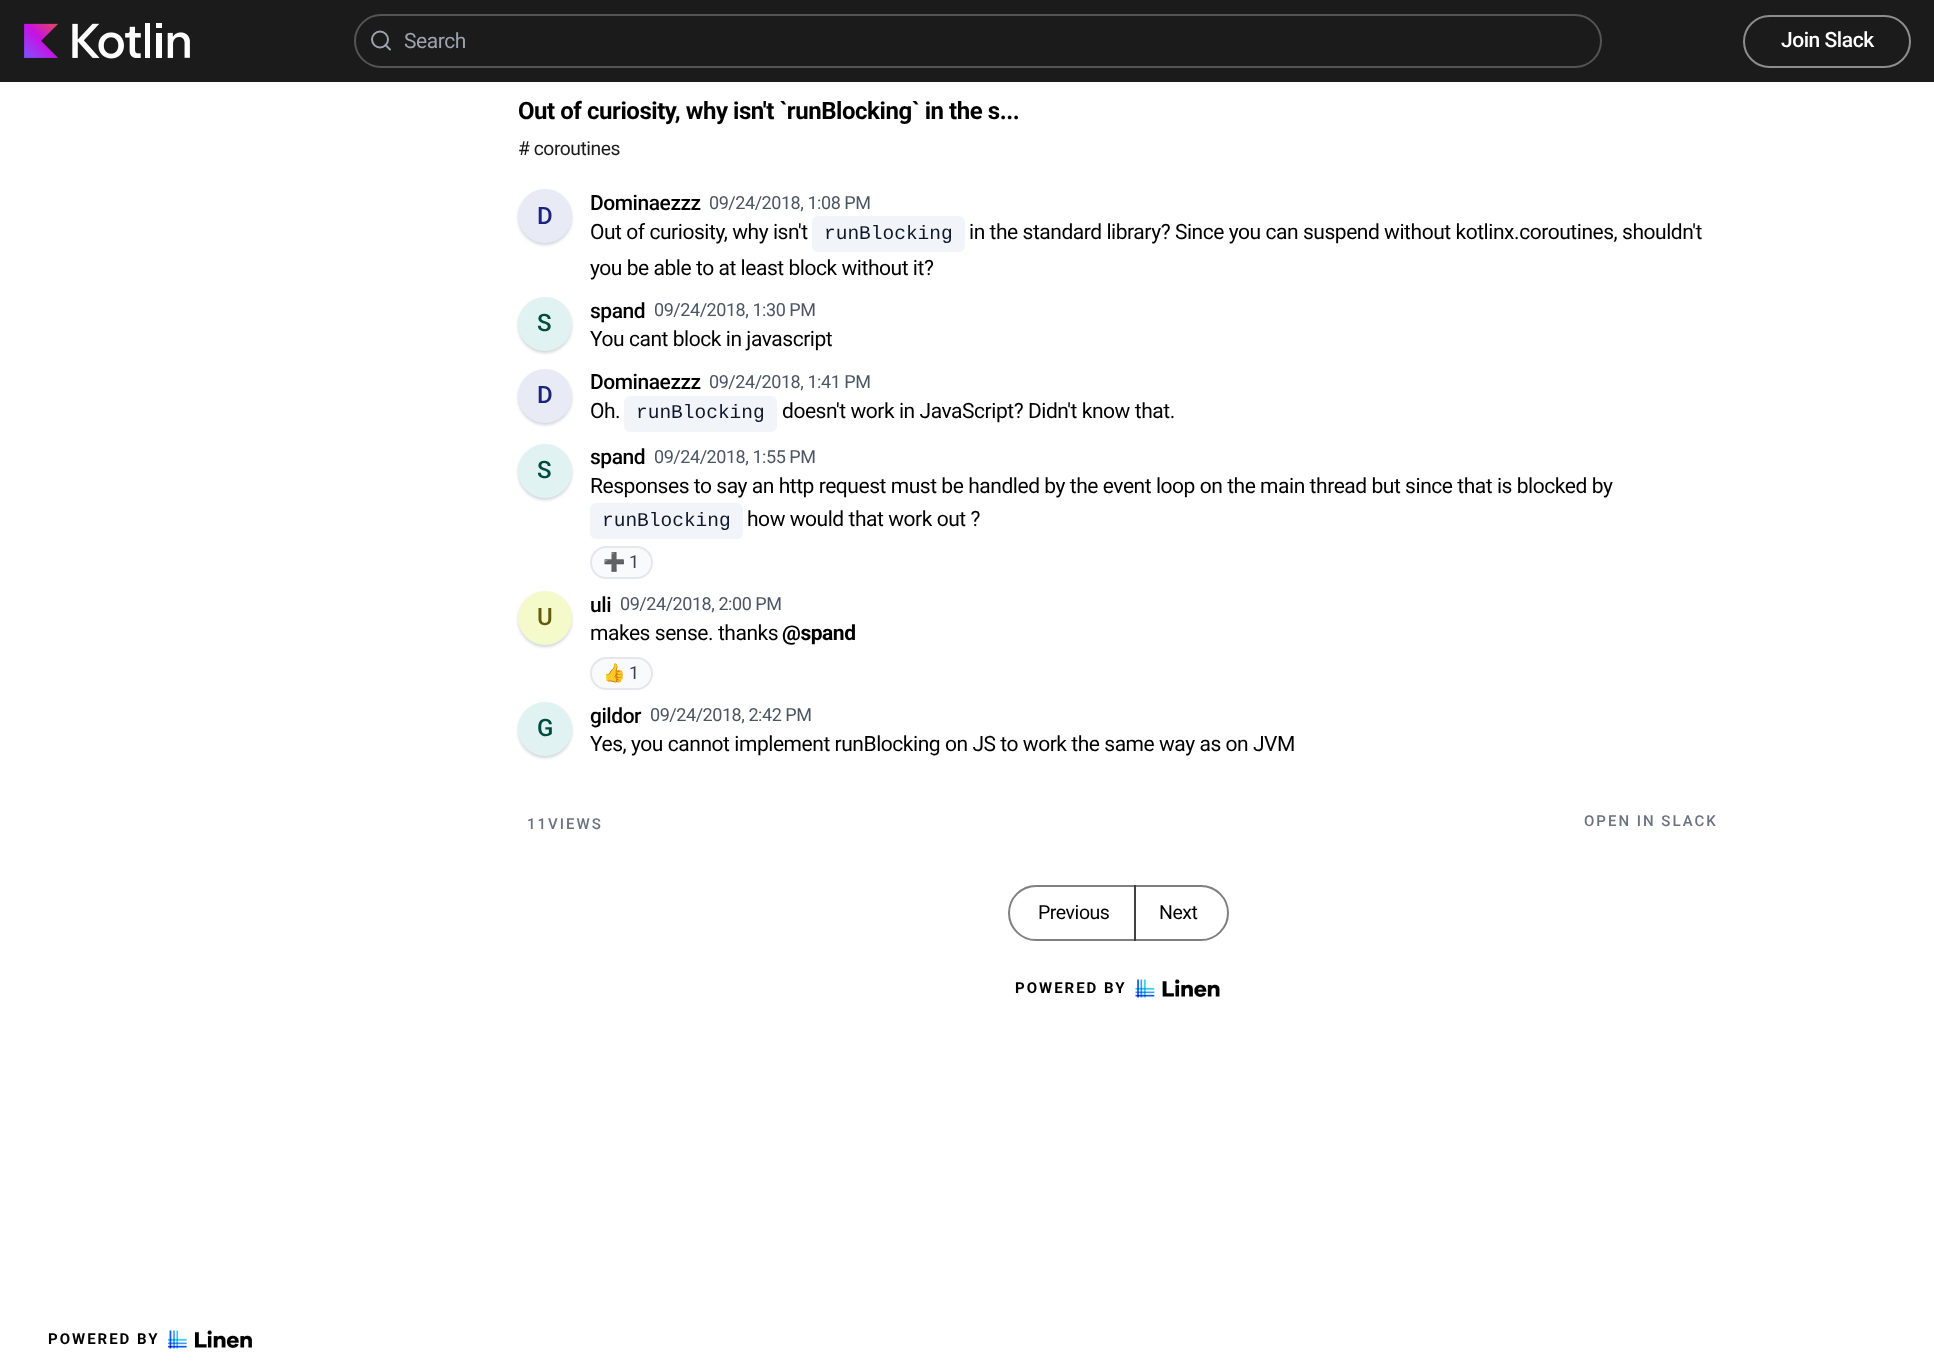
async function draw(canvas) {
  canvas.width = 1934
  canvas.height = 1363
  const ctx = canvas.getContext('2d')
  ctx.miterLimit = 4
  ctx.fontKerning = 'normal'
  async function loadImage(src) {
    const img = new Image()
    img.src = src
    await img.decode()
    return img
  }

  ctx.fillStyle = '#fff'
  ctx.fillRect(0, 0, 1934, 1363)
  ctx.fillStyle = '#1b1b1b'
  ctx.fillRect(0, 0, 1934, 82)
  ctx.drawImage(await loadImage('image0.png'), 24, 23, 166, 36)
  ctx.beginPath()
  ctx.roundRect(355, 15, 1246, 52, 26)
  ctx.strokeStyle = '#545454'
  ctx.lineWidth = 2
  ctx.stroke()
  ctx.beginPath()
  ctx.arc(380, 39.5, 8, 0, 2 * Math.PI)
  ctx.strokeStyle = '#9ca3af'
  ctx.stroke()
  ctx.beginPath()
  ctx.moveTo(390, 49.5)
  ctx.lineTo(385.5, 45)
  ctx.lineCap = 'round'
  ctx.lineJoin = 'round'
  ctx.stroke()
  ctx.letterSpacing = '-0.45px'
  ctx.font = '21px Roboto'
  ctx.fillStyle = '#9ca3af'
  ctx.fillText('Search', 404, 48)
  ctx.beginPath()
  ctx.roundRect(1744, 16, 166, 51, 25.5)
  ctx.strokeStyle = '#8d8d8d'
  ctx.lineJoin = 'miter'
  ctx.stroke()
  ctx.font = '500 21px Roboto'
  ctx.fillStyle = '#fff'
  ctx.fillText('Join Slack', 1781, 47)
  ctx.font = 'bold 24px Roboto'
  ctx.fillStyle = '#000'
  ctx.fillText('Out of curiosity, why isn\'t `runBlocking` in the s...', 518, 119)
  ctx.font = '19.25px Roboto'
  ctx.fillStyle = '#1a1a1a'
  ctx.fillText('# coroutines', 518, 155)
  ctx.fillStyle = '#d1d5db'
  ctx.filter = 'blur(1.5px)'
  ctx.beginPath()
  ctx.roundRect(518, 191, 54, 54, 27)
  ctx.fill()
  ctx.filter = 'none'
  ctx.fillStyle = '#e8eaf6'
  ctx.beginPath()
  ctx.arc(545, 216, 27, 0, 2 * Math.PI)
  ctx.fill()
  ctx.font = '500 24px Roboto'
  ctx.fillStyle = '#1a237e'
  ctx.fillText('D', 537, 224)
  ctx.font = '500 21px Roboto'
  ctx.fillStyle = '#000'
  ctx.fillText('Dominaezzz', 590, 210)
  ctx.font = '18px Roboto'
  ctx.fillStyle = '#4b5563'
  ctx.fillText('09/24/2018, 1:08 PM', 709, 209)
  ctx.font = '21px Roboto'
  ctx.fillStyle = '#000'
  ctx.fillText('Out of curiosity, why isn\'t', 590, 239)
  ctx.fillStyle = '#f1f5f9'
  ctx.beginPath()
  ctx.roundRect(812, 216, 153, 36, 6)
  ctx.fill()
  ctx.letterSpacing = '0px'
  ctx.font = '19.5px Liberation Mono'
  ctx.fillStyle = '#0f172a'
  ctx.fillText('runBlocking', 824, 239)
  ctx.letterSpacing = '-0.45px'
  ctx.font = '21px Roboto'
  ctx.fillStyle = '#000'
  ctx.fillText('in the standard library? Since you can suspend without kotlinx.coroutines, shouldn\'t', 969, 239)
  ctx.fillText('you be able to at least block without it?', 590, 275)
  ctx.fillStyle = '#d1d5db'
  ctx.filter = 'blur(1.5px)'
  ctx.beginPath()
  ctx.roundRect(518, 299, 54, 54, 27)
  ctx.fill()
  ctx.filter = 'none'
  ctx.fillStyle = '#e0f2f1'
  ctx.beginPath()
  ctx.arc(545, 324, 27, 0, 2 * Math.PI)
  ctx.fill()
  ctx.font = '500 24px Roboto'
  ctx.fillStyle = '#004d40'
  ctx.fillText('S', 537, 331)
  ctx.font = '500 21px Roboto'
  ctx.fillStyle = '#000'
  ctx.fillText('spand', 590, 318)
  ctx.font = '18px Roboto'
  ctx.fillStyle = '#4b5563'
  ctx.fillText('09/24/2018, 1:30 PM', 654, 316)
  ctx.font = '21px Roboto'
  ctx.fillStyle = '#000'
  ctx.fillText('You cant block in javascript', 590, 346)
  ctx.fillStyle = '#d1d5db'
  ctx.filter = 'blur(1.5px)'
  ctx.beginPath()
  ctx.roundRect(518, 371, 54, 54, 27)
  ctx.fill()
  ctx.filter = 'none'
  ctx.fillStyle = '#e8eaf6'
  ctx.beginPath()
  ctx.arc(545, 396, 27, 0, 2 * Math.PI)
  ctx.fill()
  ctx.font = '500 24px Roboto'
  ctx.fillStyle = '#1a237e'
  ctx.fillText('D', 537, 403)
  ctx.font = '500 21px Roboto'
  ctx.fillStyle = '#000'
  ctx.fillText('Dominaezzz', 590, 389)
  ctx.font = '18px Roboto'
  ctx.fillStyle = '#4b5563'
  ctx.fillText('09/24/2018, 1:41 PM', 709, 388)
  ctx.font = '21px Roboto'
  ctx.fillStyle = '#000'
  ctx.fillText('Oh.', 590, 418)
  ctx.fillStyle = '#f1f5f9'
  ctx.beginPath()
  ctx.roundRect(624, 396, 153, 36, 6)
  ctx.fill()
  ctx.letterSpacing = '0px'
  ctx.font = '19.5px Liberation Mono'
  ctx.fillStyle = '#0f172a'
  ctx.fillText('runBlocking', 636, 418)
  ctx.letterSpacing = '-0.45px'
  ctx.font = '21px Roboto'
  ctx.fillStyle = '#000'
  ctx.fillText('doesn\'t work in JavaScript? Didn\'t know that.', 782, 418)
  ctx.fillStyle = '#d1d5db'
  ctx.filter = 'blur(1.5px)'
  ctx.beginPath()
  ctx.roundRect(518, 446, 54, 54, 27)
  ctx.fill()
  ctx.filter = 'none'
  ctx.fillStyle = '#e0f2f1'
  ctx.beginPath()
  ctx.arc(545, 471, 27, 0, 2 * Math.PI)
  ctx.fill()
  ctx.font = '500 24px Roboto'
  ctx.fillStyle = '#004d40'
  ctx.fillText('S', 537, 478)
  ctx.font = '500 21px Roboto'
  ctx.fillStyle = '#000'
  ctx.fillText('spand', 590, 464)
  ctx.font = '18px Roboto'
  ctx.fillStyle = '#4b5563'
  ctx.fillText('09/24/2018, 1:55 PM', 654, 463)
  ctx.font = '21px Roboto'
  ctx.fillStyle = '#000'
  ctx.fillText('Responses to say an http request must be handled by the event loop on the main thread but since that is blocked by', 590, 493)
  ctx.fillStyle = '#f1f5f9'
  ctx.beginPath()
  ctx.roundRect(590, 503, 153, 36, 6)
  ctx.fill()
  ctx.letterSpacing = '0px'
  ctx.font = '19.5px Liberation Mono'
  ctx.fillStyle = '#0f172a'
  ctx.fillText('runBlocking', 602, 526)
  ctx.letterSpacing = '-0.45px'
  ctx.font = '21px Roboto'
  ctx.fillStyle = '#000'
  ctx.fillText('how would that work out ?', 747, 526)
  ctx.fillStyle = '#f9fafb'
  ctx.beginPath()
  ctx.roundRect(591, 547, 61, 31, 15.5)
  ctx.fill()
  ctx.strokeStyle = '#e5e7eb'
  ctx.stroke()
  ctx.font = '18px Noto Color Emoji'
  ctx.fillStyle = '#374151'
  ctx.fillText('➕', 603, 568)
  ctx.font = '18px Roboto'
  ctx.fillText('1', 629, 568)
  ctx.fillStyle = '#d1d5db'
  ctx.filter = 'blur(1.5px)'
  ctx.beginPath()
  ctx.roundRect(518, 593, 54, 54, 27)
  ctx.fill()
  ctx.filter = 'none'
  ctx.fillStyle = '#f5facb'
  ctx.beginPath()
  ctx.arc(545, 618, 27, 0, 2 * Math.PI)
  ctx.fill()
  ctx.font = '500 24px Roboto'
  ctx.fillStyle = '#645b0c'
  ctx.fillText('U', 537, 625)
  ctx.font = '500 21px Roboto'
  ctx.fillStyle = '#000'
  ctx.fillText('uli', 590, 612)
  ctx.font = '18px Roboto'
  ctx.fillStyle = '#4b5563'
  ctx.fillText('09/24/2018, 2:00 PM', 620, 610)
  ctx.font = '21px Roboto'
  ctx.fillStyle = '#000'
  ctx.fillText('makes sense. thanks', 590, 640)
  ctx.font = 'bold 21px Roboto'
  ctx.fillText('@spand', 782, 640)
  ctx.fillStyle = '#f9fafb'
  ctx.beginPath()
  ctx.roundRect(591, 658, 61, 31, 15.5)
  ctx.fill()
  ctx.stroke()
  ctx.font = '18px Noto Color Emoji'
  ctx.fillStyle = '#374151'
  ctx.fillText('👍', 603, 679)
  ctx.font = '18px Roboto'
  ctx.fillText('1', 629, 679)
  ctx.fillStyle = '#d1d5db'
  ctx.filter = 'blur(1.5px)'
  ctx.beginPath()
  ctx.roundRect(518, 704, 54, 54, 27)
  ctx.fill()
  ctx.filter = 'none'
  ctx.fillStyle = '#e0f2f1'
  ctx.beginPath()
  ctx.arc(545, 729, 27, 0, 2 * Math.PI)
  ctx.fill()
  ctx.font = '500 24px Roboto'
  ctx.fillStyle = '#004d40'
  ctx.fillText('G', 537, 736)
  ctx.font = '500 21px Roboto'
  ctx.fillStyle = '#000'
  ctx.fillText('gildor', 590, 723)
  ctx.font = '18px Roboto'
  ctx.fillStyle = '#4b5563'
  ctx.fillText('09/24/2018, 2:42 PM', 650, 721)
  ctx.font = '21px Roboto'
  ctx.fillStyle = '#000'
  ctx.fillText('Yes, you cannot implement runBlocking on JS to work the same way as on JVM', 590, 751)
  ctx.letterSpacing = '2px'
  ctx.font = '500 15px Roboto'
  ctx.fillStyle = '#6b7280'
  ctx.fillText('11VIEWS', 527, 829)
  ctx.fillText('OPEN IN SLACK', 1584, 826)
  ctx.beginPath()
  ctx.roundRect(1009, 886, 126, 54, [27, 0, 0, 27])
  ctx.strokeStyle = '#808080'
  ctx.stroke()
  ctx.letterSpacing = '-0.45px'
  ctx.font = '19.5px Roboto'
  ctx.fillStyle = '#000'
  ctx.fillText('Previous', 1038, 919)
  ctx.beginPath()
  ctx.roundRect(1135, 886, 93, 54, [0, 27, 27, 0])
  ctx.strokeStyle = '#00000080'
  ctx.stroke()
  ctx.fillText('Next', 1159, 919)
  ctx.letterSpacing = '2px'
  ctx.font = 'bold 15px Roboto'
  ctx.fillText('POWERED BY', 1015, 993)
  ctx.drawImage(await loadImage('image1.png'), 1135, 979, 85, 19)
  ctx.fillText('POWERED BY', 48, 1344)
  ctx.drawImage(await loadImage('image2.png'), 168, 1330, 84, 19)
}

draw(document.querySelector('canvas'))
